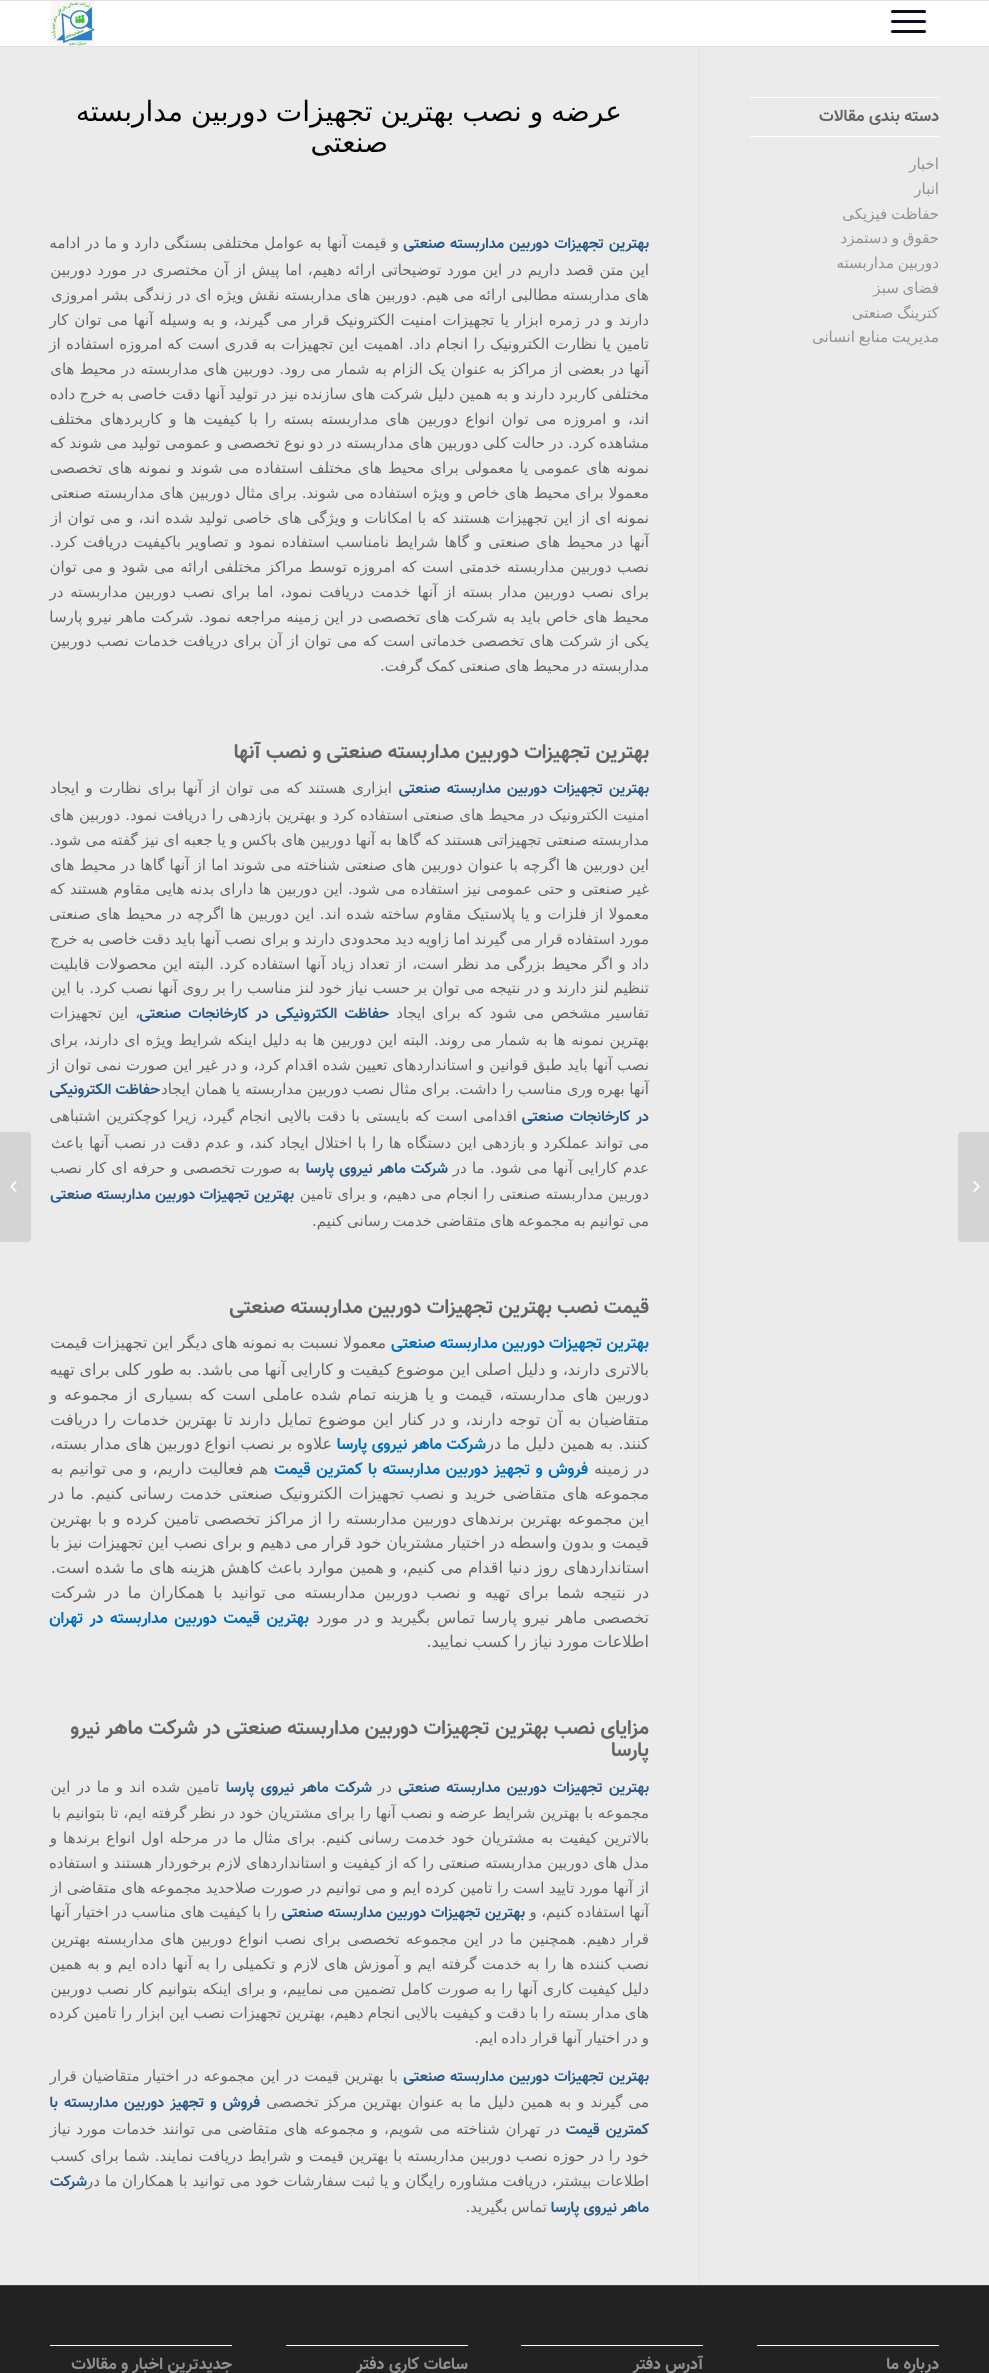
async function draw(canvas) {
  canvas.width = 989
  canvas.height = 2373
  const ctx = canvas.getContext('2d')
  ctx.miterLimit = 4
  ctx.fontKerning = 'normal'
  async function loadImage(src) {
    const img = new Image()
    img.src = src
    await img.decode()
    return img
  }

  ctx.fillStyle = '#ebebeb'
  ctx.fillRect(0, 0, 989, 2373)
  ctx.fillStyle = '#e1e1e1'
  ctx.fillRect(0, 0, 989, 1)
  ctx.fillRect(0, 46, 989, 1)
  ctx.fillStyle = '#fff'
  ctx.fillRect(0, 1, 989, 45)
  ctx.fillStyle = '#0d0e24'
  ctx.beginPath()
  ctx.roundRect(891, 20, 35, 3, 1.5)
  ctx.fill()
  ctx.beginPath()
  ctx.roundRect(891, 10, 35, 3, 1.5)
  ctx.fill()
  ctx.beginPath()
  ctx.roundRect(891, 30, 35, 3, 1.5)
  ctx.fill()
  ctx.drawImage(await loadImage('image0.png'), 50, 1, 45, 45)
  ctx.fillStyle = '#d4d4d4'
  ctx.beginPath()
  ctx.roundRect(958, 1132, 31, 110, [4, 0, 0, 4])
  ctx.fill()
  ctx.drawImage(await loadImage('image1.png'), 973, 1181, 7, 11)
  ctx.fillStyle = '#fff'
  ctx.fillRect(750, 97, 189, 1)
  ctx.fillRect(750, 136, 189, 1)
  ctx.direction = 'rtl'
  ctx.font = 'bold 16.5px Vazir'
  ctx.fillStyle = '#666'
  ctx.fillText('دسته بندی مقالات', 939, 121)
  ctx.font = '15px DejaVu Sans'
  ctx.fillStyle = '#919191'
  ctx.fillText('اخبار', 939, 169)
  ctx.fillText('انبار', 939, 194)
  ctx.wordSpacing = '-1px'
  ctx.fillText('حفاظت فیزیکی', 939, 219)
  ctx.fillText('حقوق و دستمزد', 939, 243)
  ctx.fillText('دوربین مداربسته', 939, 268)
  ctx.fillText('فضای سبز', 939, 293)
  ctx.fillText('کترینگ صنعتی', 939, 318)
  ctx.fillText('مدیریت منابع انسانی', 939, 342)
  ctx.fillStyle = '#e1e1e1'
  ctx.fillRect(699, 47, 1, 2238)
  ctx.font = '28px DejaVu Sans'
  ctx.fillStyle = '#000'
  ctx.fillText('عرضه و نصب بهترین تجهیزات دوربین مداربسته', 622, 121)
  ctx.wordSpacing = '0px'
  ctx.fillText('صنعتی', 388, 152)
  ctx.wordSpacing = '1px'
  ctx.font = 'bold 15px Vazir'
  ctx.fillStyle = '#2d5c88'
  ctx.fillText('بهترین تجهیزات دوربین مداربسته صنعتی', 649, 248)
  ctx.wordSpacing = '0.25px'
  ctx.font = '15px DejaVu Sans'
  ctx.fillStyle = '#666'
  ctx.fillText('و قیمت آنها به عوامل مختلفی بستگی دارد و ما در ادامه', 399, 248)
  ctx.wordSpacing = '1px'
  ctx.fillText('این متن قصد داریم در این مورد توضیحاتی ارائه دهیم، اما پیش از آن مختصری در مورد دوربین', 649, 275)
  ctx.wordSpacing = '0px'
  ctx.fillText('های مداربسته مطالبی ارائه می هیم. دوربین های مداربسته نقش ویژه ای در زندگی بشر امروزی', 649, 300)
  ctx.wordSpacing = '1.1px'
  ctx.fillText('دارند و در زمره ابزار یا تجهیزات امنیت الکترونیک قرار می گیرند، و به وسیله آنها می توان کار', 649, 325)
  ctx.wordSpacing = '0.5px'
  ctx.fillText('تامین یا نظارت الکترونیک را انجام داد. اهمیت این تجهیزات به قدری است که امروزه استفاده از', 649, 349)
  ctx.fillText('آنها در بعضی از مراکز به عنوان یک الزام به شمار می رود. دوربین های مداربسته در محیط های', 649, 374)
  ctx.wordSpacing = '-0.25px'
  ctx.fillText('مختلفی کاربرد دارند و به همین دلیل شرکت های سازنده نیز در تولید آنها دقت خاصی به خرج داده', 649, 399)
  ctx.wordSpacing = '2.4px'
  ctx.fillText('اند، و امروزه می توان انواع دوربین های مداربسته بسته را با کیفیت ها و کاربردهای مختلف', 649, 424)
  ctx.wordSpacing = '-0.25px'
  ctx.fillText('مشاهده کرد. در حالت کلی دوربین های مداربسته در دو نوع تخصصی و عمومی تولید می شوند که', 649, 448)
  ctx.wordSpacing = '1.2px'
  ctx.fillText('نمونه های عمومی یا معمولی برای محیط های مختلف استفاده می شوند و نمونه های تخصصی', 649, 473)
  ctx.wordSpacing = '0.3px'
  ctx.fillText('معمولا برای محیط های خاص و ویژه استفاده می شوند. برای مثال دوربین های مداربسته صنعتی', 649, 498)
  ctx.wordSpacing = '0.6px'
  ctx.fillText('نمونه ای از این تجهیزات هستند که با امکانات و ویژگی های خاصی تولید شده اند، و می توان از', 649, 523)
  ctx.wordSpacing = '1.4px'
  ctx.fillText('آنها در محیط های صنعتی و گاها شرایط نامناسب استفاده نمود و تصاویر باکیفیت دریافت کرد.', 649, 547)
  ctx.wordSpacing = '0.9px'
  ctx.fillText('نصب دوربین مداربسته خدمتی است که امروزه توسط مراکز مختلفی ارائه می شود و می توان', 649, 572)
  ctx.wordSpacing = '2.1px'
  ctx.fillText('برای نصب دوربین مدار بسته از آنها خدمت دریافت نمود، اما برای نصب دوربین مداربسته در', 649, 597)
  ctx.wordSpacing = '0.4px'
  ctx.fillText('محیط های خاص باید به شرکت های تخصصی در این زمینه مراجعه نمود. شرکت ماهر نیرو پارسا', 649, 622)
  ctx.wordSpacing = '0.6px'
  ctx.fillText('یکی از شرکت های تخصصی خدماتی است که می توان از آن برای دریافت خدمات نصب دوربین', 649, 646)
  ctx.wordSpacing = '-0.75px'
  ctx.fillText('مداربسته در محیط های صنعتی کمک گرفت.', 649, 671)
  ctx.wordSpacing = '0px'
  ctx.font = 'bold 20px Vazir'
  ctx.fillText('بهترین تجهیزات دوربین مداربسته صنعتی و نصب آنها', 649, 758)
  ctx.wordSpacing = '2.1px'
  ctx.font = 'bold 15px Vazir'
  ctx.fillStyle = '#2d5c88'
  ctx.fillText('بهترین تجهیزات دوربین مداربسته صنعتی', 649, 793)
  ctx.wordSpacing = '1.5px'
  ctx.font = '15px DejaVu Sans'
  ctx.fillStyle = '#666'
  ctx.fillText('ابزاری هستند که می توان از آنها برای نظارت و ایجاد', 392, 793)
  ctx.wordSpacing = '0.2px'
  ctx.fillText('امنیت الکترونیک در محیط های صنعتی استفاده کرد و بهترین بازدهی را دریافت نمود. دوربین های', 649, 820)
  ctx.wordSpacing = '-0.4px'
  ctx.fillText('مداربسته صنعتی تجهیزاتی هستند که گاها به آنها دوربین های باکس و یا جعبه ای نیز گفته می شود.', 649, 845)
  ctx.wordSpacing = '0.4px'
  ctx.fillText('این دوربین ها اگرچه با عنوان دوربین های صنعتی شناخته می شوند اما از آنها گاها در محیط های', 649, 870)
  ctx.wordSpacing = '0.5px'
  ctx.fillText('غیر صنعتی و حتی عمومی نیز استفاده می شود. این دوربین ها دارای بدنه هایی مقاوم هستند که', 649, 894)
  ctx.wordSpacing = '0.75px'
  ctx.fillText('معمولا از فلزات و یا پلاستیک مقاوم ساخته شده اند. این دوربین ها اگرچه در محیط های صنعتی', 649, 919)
  ctx.wordSpacing = '-0.4px'
  ctx.fillText('مورد استفاده قرار می گیرند اما زاویه دید محدودی دارند و برای نصب آنها باید دقت خاصی به خرج', 649, 944)
  ctx.wordSpacing = '0.9px'
  ctx.fillText('داد و اگر محیط بزرگی مد نظر است، از تعداد زیاد آنها استفاده کرد. البته این محصولات قابلیت', 649, 969)
  ctx.wordSpacing = '0.1px'
  ctx.fillText('تنظیم لنز دارند و در نتیجه می توان بر حسب نیاز خود لنز مناسب را بر روی آنها نصب کرد. با این', 649, 993)
  ctx.wordSpacing = '2.1px'
  ctx.fillText('تفاسیر مشخص می شود که برای ایجاد', 649, 1018)
  ctx.wordSpacing = '3px'
  ctx.font = 'bold 15px Vazir'
  ctx.fillStyle = '#2d5c88'
  ctx.fillText('حفاظت الکترونیکی در کارخانجات صنعتی', 389, 1018)
  ctx.wordSpacing = '2.1px'
  ctx.font = '15px DejaVu Sans'
  ctx.fillStyle = '#666'
  ctx.fillText('، این تجهیزات', 140, 1018)
  ctx.wordSpacing = '0.75px'
  ctx.fillText('بهترین نمونه ها به شمار می روند. البته این دوربین ها به دلیل اینکه شرایط ویژه ای دارند، برای', 649, 1045)
  ctx.wordSpacing = '0px'
  ctx.fillText('نصب آنها باید طبق قوانین و استانداردهای تعیین شده اقدام کرد، و در غیر این صورت نمی توان از', 649, 1070)
  ctx.wordSpacing = '-0.25px'
  ctx.fillText('آنها بهره وری مناسب را داشت. برای مثال نصب دوربین مداربسته یا همان ایجاد', 649, 1094)
  ctx.wordSpacing = '0px'
  ctx.font = 'bold 15px Vazir'
  ctx.fillStyle = '#2d5c88'
  ctx.fillText('حفاظت الکترونیکی', 160, 1094)
  ctx.wordSpacing = '2px'
  ctx.fillText('در کارخانجات صنعتی', 649, 1121)
  ctx.wordSpacing = '1px'
  ctx.font = '15px DejaVu Sans'
  ctx.fillStyle = '#666'
  ctx.fillText('اقدامی است که بایستی با دقت بالایی انجام گیرد، زیرا کوچکترین اشتباهی', 517, 1121)
  ctx.wordSpacing = '0.75px'
  ctx.fillText('می تواند عملکرد و بازدهی این دستگاه ها را با اختلال ایجاد کند، و عدم دقت در نصب آنها باعث', 649, 1148)
  ctx.wordSpacing = '0.5px'
  ctx.fillText('عدم کارایی آنها می شود. ما در', 649, 1173)
  ctx.wordSpacing = '1px'
  ctx.font = 'bold 15px Vazir'
  ctx.fillStyle = '#2d5c88'
  ctx.fillText('شرکت ماهر نیروی پارسا', 448, 1173)
  ctx.wordSpacing = '0.5px'
  ctx.font = '15px DejaVu Sans'
  ctx.fillStyle = '#666'
  ctx.fillText('به صورت تخصصی و حرفه ای کار نصب', 300, 1173)
  ctx.wordSpacing = '0px'
  ctx.fillText('دوربین مداربسته صنعتی را انجام می دهیم، و برای تامین', 649, 1199)
  ctx.wordSpacing = '0.5px'
  ctx.font = 'bold 15px Vazir'
  ctx.fillStyle = '#2d5c88'
  ctx.fillText('بهترین تجهیزات دوربین مداربسته صنعتی', 294, 1199)
  ctx.wordSpacing = '-0.75px'
  ctx.font = '15px DejaVu Sans'
  ctx.fillStyle = '#666'
  ctx.fillText('می توانیم به مجموعه های متقاضی خدمت رسانی کنیم.', 649, 1226)
  ctx.wordSpacing = '0px'
  ctx.font = 'bold 20px Vazir'
  ctx.fillText('قیمت نصب بهترین تجهیزات دوربین مداربسته صنعتی', 649, 1313)
  ctx.font = 'bold 16px Vazir'
  ctx.fillStyle = '#0070c0'
  ctx.fillText('بهترین تجهیزات دوربین مداربسته صنعتی', 649, 1348)
  ctx.wordSpacing = '-0.5px'
  ctx.font = '16px DejaVu Sans'
  ctx.fillStyle = '#666'
  ctx.fillText('معمولا نسبت به نمونه های دیگر این تجهیزات قیمت', 386, 1348)
  ctx.wordSpacing = '-0.3px'
  ctx.fillText('بالاتری دارند، و دلیل اصلی این موضوع کیفیت و کارایی آنها می باشد. به طور کلی برای تهیه', 649, 1375)
  ctx.wordSpacing = '1.6px'
  ctx.fillText('دوربین های مداربسته، قیمت و یا هزینه تمام شده عاملی است که بسیاری از مجموعه و', 649, 1400)
  ctx.wordSpacing = '1px'
  ctx.fillText('متقاضیان به آن توجه دارند، و در کنار این موضوع تمایل دارند تا بهترین خدمات را دریافت', 649, 1425)
  ctx.wordSpacing = '0.3px'
  ctx.fillText('کنند. به همین دلیل ما در', 649, 1449)
  ctx.wordSpacing = '0.2px'
  ctx.font = 'bold 16px Vazir'
  ctx.fillStyle = '#0070c0'
  ctx.fillText('شرکت ماهر نیروی پارسا', 486, 1449)
  ctx.wordSpacing = '-0.5px'
  ctx.font = '16px DejaVu Sans'
  ctx.fillStyle = '#666'
  ctx.fillText('علاوه بر نصب انواع دوربین های مدار بسته،', 332, 1449)
  ctx.wordSpacing = '0.5px'
  ctx.fillText('در زمینه', 649, 1474)
  ctx.wordSpacing = '1.25px'
  ctx.font = 'bold 16px Vazir'
  ctx.fillStyle = '#0070c0'
  ctx.fillText('فروش و تجهیز دوربین مداربسته با کمترین قیمت', 588, 1474)
  ctx.wordSpacing = '0.5px'
  ctx.font = '16px DejaVu Sans'
  ctx.fillStyle = '#666'
  ctx.fillText('هم فعالیت داریم، و می توانیم به', 268, 1474)
  ctx.wordSpacing = '1.25px'
  ctx.fillText('مجموعه های متقاضی خرید و نصب تجهیزات الکترونیک صنعتی خدمت رسانی کنیم. ما در', 649, 1499)
  ctx.wordSpacing = '0.6px'
  ctx.fillText('این مجموعه بهترین برندهای دوربین مداربسته را از مراکز تخصصی تامین کرده و با بهترین', 649, 1524)
  ctx.wordSpacing = '-0.25px'
  ctx.fillText('قیمت و بدون واسطه در اختیار مشتریان خود قرار می دهیم و برای نصب این تجهیزات نیز با', 649, 1548)
  ctx.wordSpacing = '0.3px'
  ctx.fillText('استانداردهای روز دنیا اقدام می کنیم، و همین موارد باعث کاهش هزینه های ما شده است.', 649, 1573)
  ctx.wordSpacing = '3.25px'
  ctx.fillText('در نتیجه شما برای تهیه و نصب دوربین مداربسته می توانید با همکاران ما در شرکت', 649, 1598)
  ctx.wordSpacing = '1.5px'
  ctx.fillText('تخصصی ماهر نیرو پارسا تماس بگیرید و در مورد', 649, 1623)
  ctx.wordSpacing = '2.25px'
  ctx.font = 'bold 16px Vazir'
  ctx.fillStyle = '#0070c0'
  ctx.fillText('بهترین قیمت دوربین مداربسته در تهران', 309, 1623)
  ctx.wordSpacing = '-0.75px'
  ctx.font = '16px DejaVu Sans'
  ctx.fillStyle = '#666'
  ctx.fillText('اطلاعات مورد نیاز را کسب نمایید.', 649, 1647)
  ctx.wordSpacing = '0px'
  ctx.font = 'bold 20px Vazir'
  ctx.fillText('مزایای نصب بهترین تجهیزات دوربین مداربسته صنعتی در شرکت ماهر نیرو', 649, 1734)
  ctx.fillText('پارسا', 649, 1756)
  ctx.wordSpacing = '2.25px'
  ctx.font = 'bold 15px Vazir'
  ctx.fillStyle = '#2d5c88'
  ctx.fillText('بهترین تجهیزات دوربین مداربسته صنعتی', 649, 1792)
  ctx.wordSpacing = '0px'
  ctx.font = '15px DejaVu Sans'
  ctx.fillStyle = '#666'
  ctx.fillText('در', 392, 1792)
  ctx.wordSpacing = '2.25px'
  ctx.font = 'bold 15px Vazir'
  ctx.fillStyle = '#2d5c88'
  ctx.fillText('شرکت ماهر نیروی پارسا', 372, 1792)
  ctx.wordSpacing = '1.5px'
  ctx.font = '15px DejaVu Sans'
  ctx.fillStyle = '#666'
  ctx.fillText('تامین شده اند و ما در این', 219, 1792)
  ctx.wordSpacing = '0px'
  ctx.fillText('مجموعه با بهترین شرایط عرضه و نصب آنها را برای مشتریان خود در نظر گرفته ایم، تا بتوانیم با', 649, 1818)
  ctx.wordSpacing = '1.25px'
  ctx.fillText('بالاترین کیفیت به مشتریان خود خدمت رسانی کنیم. برای مثال ما در مرحله اول انواع برندها و', 649, 1843)
  ctx.wordSpacing = '0px'
  ctx.fillText('مدل های دوربین مداربسته صنعتی را که از کیفیت و استانداردهای لازم برخوردار هستند و استفاده', 649, 1868)
  ctx.wordSpacing = '-0.2px'
  ctx.fillText('از آنها مورد تایید است را تامین کرده ایم و می توانیم در صورت صلاحدید مجموعه های متقاضی از', 649, 1893)
  ctx.wordSpacing = '-0.25px'
  ctx.fillText('آنها استفاده کنیم، و', 649, 1917)
  ctx.wordSpacing = '0.4px'
  ctx.font = 'bold 15px Vazir'
  ctx.fillStyle = '#2d5c88'
  ctx.fillText('بهترین تجهیزات دوربین مداربسته صنعتی', 525, 1917)
  ctx.wordSpacing = '-0.25px'
  ctx.font = '15px DejaVu Sans'
  ctx.fillStyle = '#666'
  ctx.fillText('را با کیفیت های مناسب در اختیار آنها', 277, 1917)
  ctx.wordSpacing = '1.6px'
  ctx.fillText('قرار دهیم. همچنین ما در این مجموعه تخصصی برای نصب انواع دوربین های مداربسته بهترین', 649, 1944)
  ctx.wordSpacing = '0.7px'
  ctx.fillText('نصب کننده ها را به خدمت گرفته ایم و آموزش های لازم و تکمیلی را به آنها داده ایم و به همین', 649, 1969)
  ctx.wordSpacing = '0.3px'
  ctx.fillText('دلیل کیفیت کاری آنها را به صورت کامل تضمین می نماییم، و برای اینکه بتوانیم کار نصب دوربین', 649, 1994)
  ctx.wordSpacing = '-0.4px'
  ctx.fillText('های مدار بسته را با دقت و کیفیت بالایی انجام دهیم، بهترین تجهیزات نصب این ابزار را تامین کرده', 649, 2018)
  ctx.wordSpacing = '-0.75px'
  ctx.fillText('و در اختیار آنها قرار داده ایم.', 649, 2043)
  ctx.wordSpacing = '1px'
  ctx.font = 'bold 15px Vazir'
  ctx.fillStyle = '#2d5c88'
  ctx.fillText('بهترین تجهیزات دوربین مداربسته صنعتی', 649, 2081)
  ctx.wordSpacing = '0.5px'
  ctx.font = '15px DejaVu Sans'
  ctx.fillStyle = '#666'
  ctx.fillText('با بهترین قیمت در این مجموعه در اختیار متقاضیان قرار', 398, 2081)
  ctx.wordSpacing = '1.25px'
  ctx.fillText('می گیرند و به همین دلیل ما به عنوان بهترین مرکز تخصصی', 649, 2107)
  ctx.wordSpacing = '2px'
  ctx.font = 'bold 15px Vazir'
  ctx.fillStyle = '#2d5c88'
  ctx.fillText('فروش و تجهیز دوربین مداربسته با', 260, 2107)
  ctx.fillText('کمترین قیمت', 649, 2134)
  ctx.wordSpacing = '1.25px'
  ctx.font = '15px DejaVu Sans'
  ctx.fillStyle = '#666'
  ctx.fillText('در تهران شناخته می شویم، و مجموعه های متقاضی می توانند خدمات مورد نیاز', 560, 2134)
  ctx.wordSpacing = '0.25px'
  ctx.fillText('خود را در حوزه نصب دوربین مداربسته با بهترین قیمت و شرایط دریافت نمایند. شما برای کسب', 649, 2161)
  ctx.wordSpacing = '0px'
  ctx.fillText('اطلاعات بیشتر، دریافت مشاوره رایگان و یا ثبت سفارشات خود می توانید با همکاران ما در', 649, 2186)
  ctx.font = 'bold 15px Vazir'
  ctx.fillStyle = '#2d5c88'
  ctx.fillText('شرکت', 87, 2186)
  ctx.fillText('ماهر نیروی پارسا', 649, 2212)
  ctx.wordSpacing = '-1px'
  ctx.font = '15px DejaVu Sans'
  ctx.fillStyle = '#666'
  ctx.fillText('تماس بگیرید.', 547, 2212)
  ctx.fillStyle = '#222'
  ctx.fillRect(0, 2286, 989, 87)
  ctx.fillStyle = '#444'
  ctx.fillRect(0, 2285, 989, 1)
  ctx.fillStyle = '#fff'
  ctx.fillRect(757, 2345, 182, 1)
  ctx.wordSpacing = '0px'
  ctx.font = 'bold 16.5px Vazir'
  ctx.fillStyle = '#919191'
  ctx.fillText('درباره ما', 939, 2369)
  ctx.fillStyle = '#fff'
  ctx.fillRect(521, 2345, 182, 1)
  ctx.save()
  ctx.beginPath()
  ctx.rect(521, 2331, 182, 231)
  ctx.clip()
  ctx.fillStyle = '#919191'
  ctx.fillText('آدرس دفتر', 703, 2369)
  ctx.restore()
  ctx.fillRect(286, 2345, 182, 1)
  ctx.fillStyle = '#919191'
  ctx.fillText('ساعات کاری دفتر', 468, 2369)
  ctx.fillStyle = '#fff'
  ctx.fillRect(50, 2345, 182, 1)
  ctx.fillStyle = '#919191'
  ctx.fillText('جدیدترین اخبار و مقالات', 232, 2369)
  ctx.fillStyle = '#d4d4d4'
  ctx.beginPath()
  ctx.roundRect(0, 1132, 31, 110, [0, 4, 4, 0])
  ctx.fill()
  ctx.drawImage(await loadImage('image2.png'), 10, 1181, 7, 11)
}

draw(document.querySelector('canvas'))
